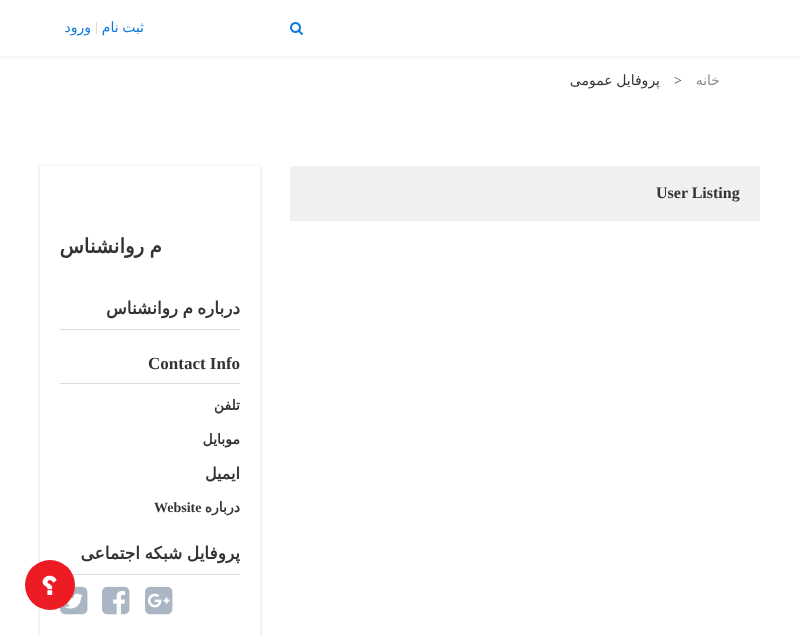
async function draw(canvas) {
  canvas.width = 800
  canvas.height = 635
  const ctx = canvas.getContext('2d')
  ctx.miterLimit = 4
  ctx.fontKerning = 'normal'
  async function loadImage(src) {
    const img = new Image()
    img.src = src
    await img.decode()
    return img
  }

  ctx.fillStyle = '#fff'
  ctx.fillRect(0, 0, 800, 635)
  ctx.save()
  ctx.beginPath()
  ctx.rect(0, 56, 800, 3)
  ctx.clip()
  ctx.fillStyle = '#4d4d4d33'
  ctx.filter = 'blur(2.5px)'
  ctx.beginPath()
  ctx.rect(1, 0, 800, 56)
  ctx.fill()
  ctx.filter = 'none'
  ctx.restore()
  ctx.drawImage(await loadImage('image0.png'), 290, 22, 13, 13)
  ctx.wordSpacing = '-1px'
  ctx.direction = 'rtl'
  ctx.font = '14px DejaVu Sans'
  ctx.fillStyle = '#0a7ae0'
  ctx.fillText('ثبت نام', 144, 32)
  ctx.fillStyle = '#dbdbdb'
  ctx.fillRect(96, 22, 1, 12)
  ctx.wordSpacing = '0px'
  ctx.fillStyle = '#0a7ae0'
  ctx.fillText('ورود', 91, 32)
  ctx.fillStyle = '#ffffff5c'
  ctx.fillRect(1, 56, 799, 2)
  ctx.fillStyle = '#8c8c8c'
  ctx.fillText('خانه', 720, 85)
  ctx.direction = 'ltr'
  ctx.font = '14px Liberation Serif'
  ctx.fillStyle = '#333'
  ctx.fillText('>', 674, 85)
  ctx.wordSpacing = '-1px'
  ctx.direction = 'rtl'
  ctx.font = '14px DejaVu Sans'
  ctx.fillText('پروفایل عمومی', 660, 85)
  ctx.fillStyle = '#ececec'
  ctx.fillRect(290, 220, 470, 1)
  ctx.fillStyle = '#f0f0f0'
  ctx.beginPath()
  ctx.roundRect(290, 166, 470, 54, [3, 3, 0, 0])
  ctx.fill()
  ctx.wordSpacing = '0px'
  ctx.direction = 'ltr'
  ctx.font = 'bold 16px Liberation Serif'
  ctx.fillStyle = '#333'
  ctx.fillText('User Listing', 656, 198)
  ctx.save()
  ctx.beginPath()
  ctx.moveTo(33, 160)
  ctx.lineTo(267, 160)
  ctx.lineTo(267, 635)
  ctx.lineTo(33, 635)
  ctx.closePath()
  ctx.moveTo(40, 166)
  ctx.lineTo(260, 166)
  ctx.lineTo(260, 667)
  ctx.lineTo(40, 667)
  ctx.closePath()
  ctx.clip('evenodd')
  ctx.fillStyle = '#0000001a'
  ctx.filter = 'blur(1.5px)'
  ctx.beginPath()
  ctx.rect(39, 166, 222, 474)
  ctx.fill()
  ctx.filter = 'none'
  ctx.restore()
  ctx.wordSpacing = '-1px'
  ctx.direction = 'rtl'
  ctx.font = 'bold 20px DejaVu Sans'
  ctx.fillText('م روانشناس', 162, 253)
  ctx.fillStyle = '#ddd'
  ctx.fillRect(60, 329, 180, 1)
  ctx.wordSpacing = '0px'
  ctx.font = 'bold 17px DejaVu Sans'
  ctx.fillStyle = '#333'
  ctx.fillText('درباره', 240, 314)
  ctx.wordSpacing = '-1px'
  ctx.fillText('م روانشناس', 193, 314)
  ctx.fillStyle = '#ddd'
  ctx.fillRect(60, 383, 180, 1)
  ctx.wordSpacing = '0px'
  ctx.direction = 'ltr'
  ctx.font = 'bold 17px Liberation Serif'
  ctx.fillStyle = '#333'
  ctx.fillText('Contact Info', 148, 369)
  ctx.direction = 'rtl'
  ctx.font = 'bold 14px DejaVu Sans'
  ctx.fillText('تلفن', 240, 410)
  ctx.fillText('موبایل', 240, 444)
  ctx.font = 'bold 16px DejaVu Sans'
  ctx.fillText('ایمیل', 240, 479)
  ctx.font = 'bold 14px DejaVu Sans'
  ctx.fillText('درباره', 240, 512)
  ctx.direction = 'ltr'
  ctx.font = 'bold 14px Liberation Serif'
  ctx.fillText('Website', 154, 512)
  ctx.fillStyle = '#ddd'
  ctx.fillRect(72, 574, 168, 1)
  ctx.wordSpacing = '-1px'
  ctx.direction = 'rtl'
  ctx.font = 'bold 17px DejaVu Sans'
  ctx.fillStyle = '#333'
  ctx.fillText('پروفایل شبکه اجتماعی', 240, 559)
  ctx.drawImage(await loadImage('image1.png'), 145, 586, 28, 29)
  ctx.drawImage(await loadImage('image2.png'), 102, 586, 28, 29)
  ctx.drawImage(await loadImage('image3.png'), 60, 586, 28, 29)
  ctx.fillStyle = '#ed1c24'
  ctx.beginPath()
  ctx.arc(50, 585, 25, 0, 2 * Math.PI)
  ctx.fill()
  ctx.drawImage(await loadImage('image4.png'), 42, 575, 15, 20)
}

draw(document.querySelector('canvas'))
